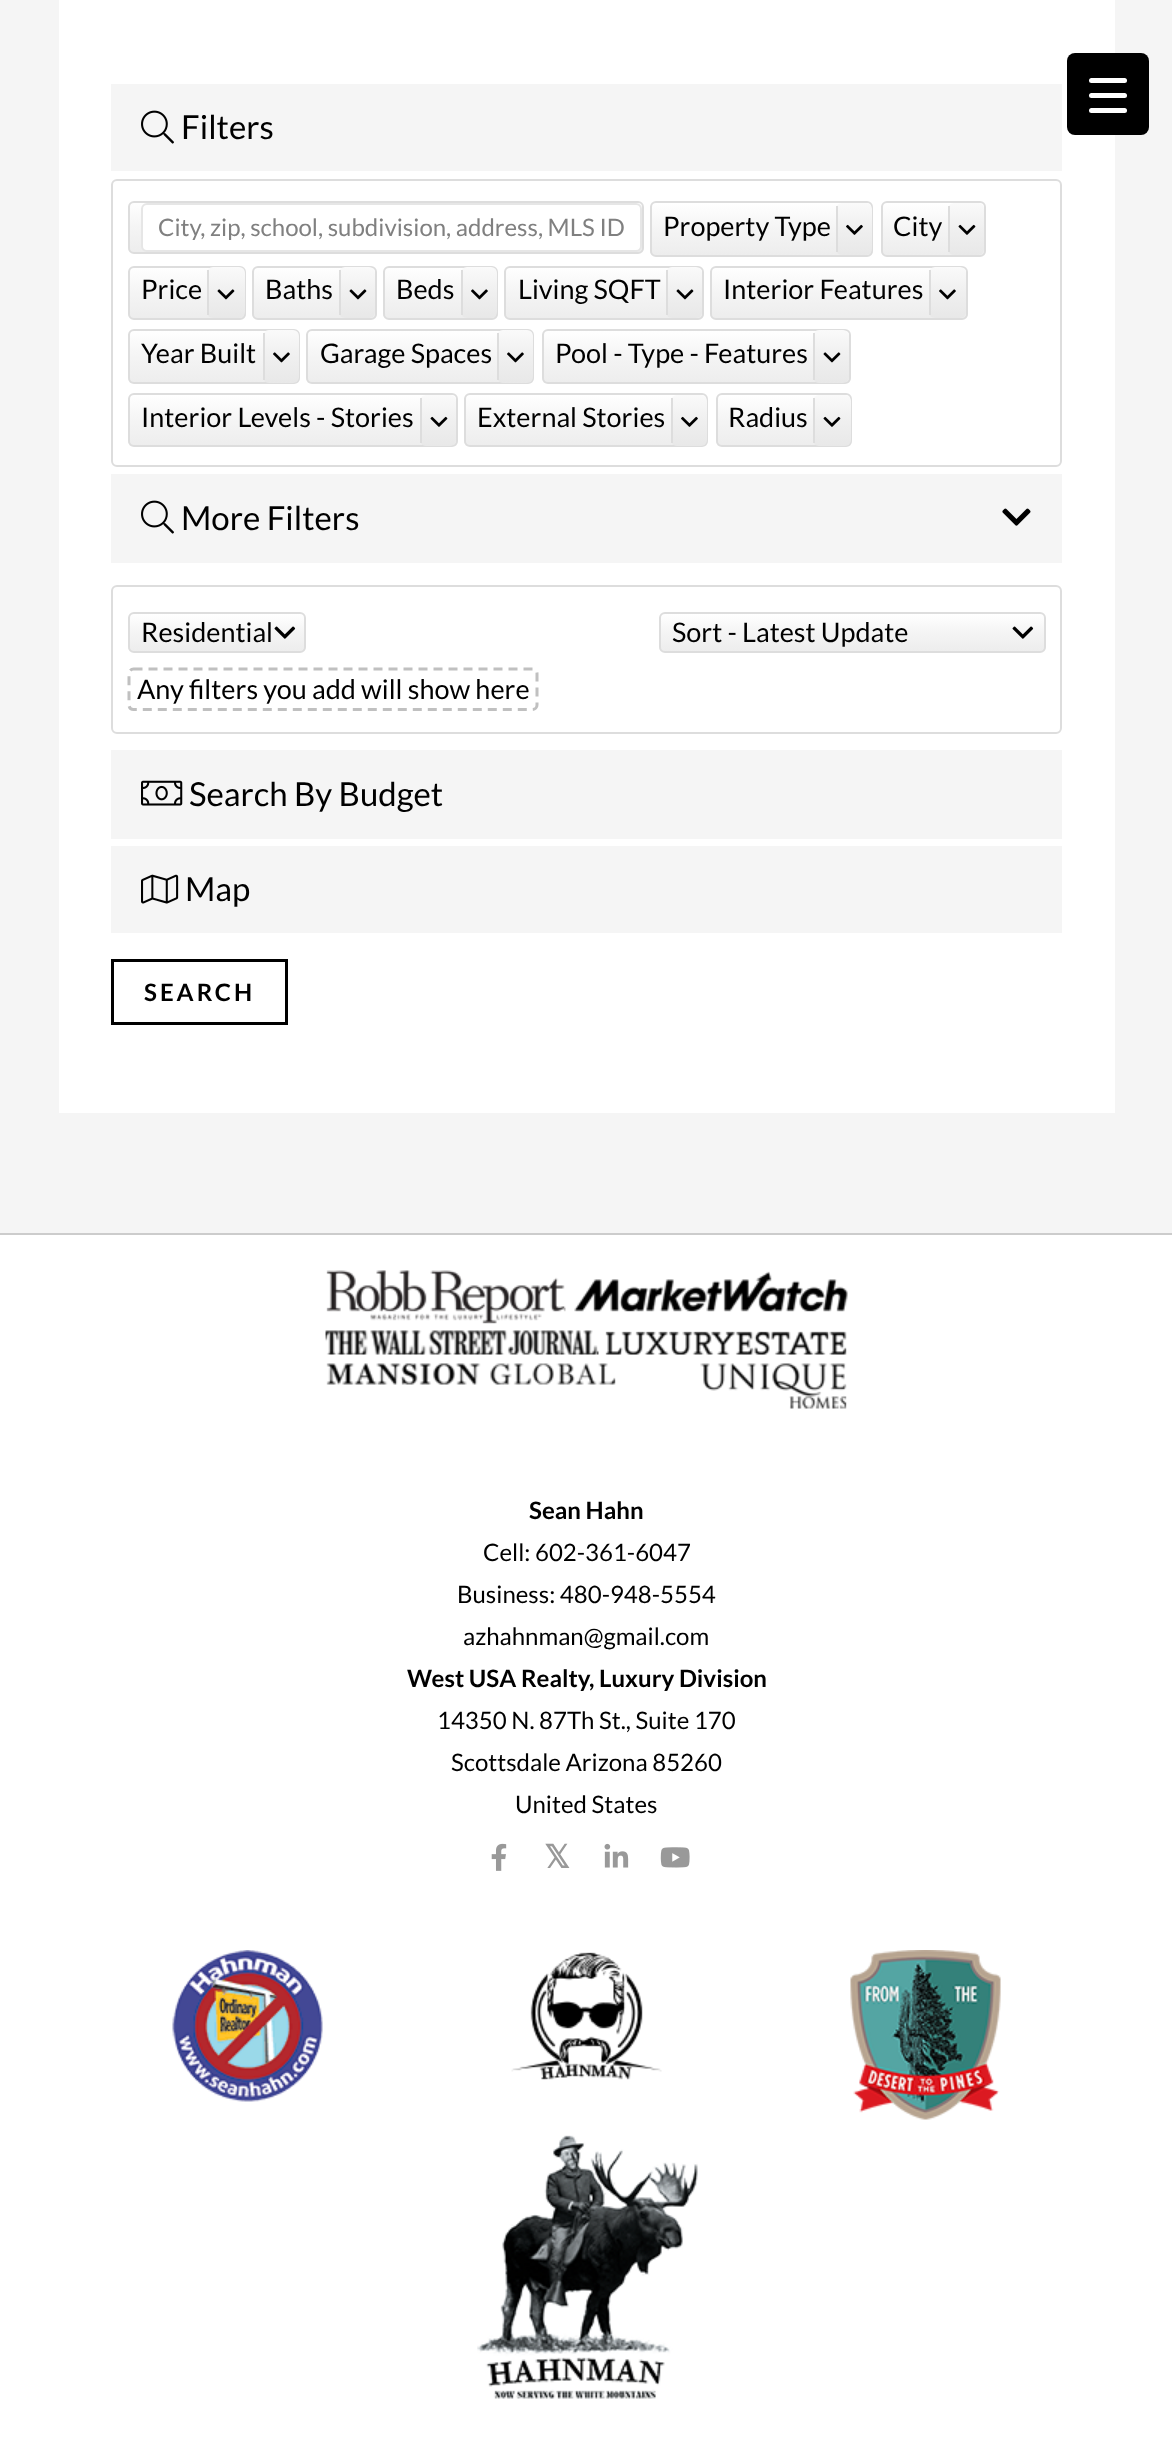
async function draw(canvas) {
  canvas.width = 1172
  canvas.height = 2443
  const ctx = canvas.getContext('2d')
  ctx.miterLimit = 4
  ctx.fontKerning = 'normal'
  async function loadImage(src) {
    const img = new Image()
    img.src = src
    await img.decode()
    return img
  }
  let gradient

  ctx.fillStyle = '#f5f5f5'
  ctx.fillRect(0, 0, 1172, 2443)
  ctx.fillStyle = '#fff'
  ctx.fillRect(59, 0, 1056, 1113)
  ctx.fillStyle = '#000'
  ctx.beginPath()
  ctx.roundRect(1067, 53, 82, 82, 8)
  ctx.fill()
  ctx.fillStyle = '#fff'
  ctx.beginPath()
  ctx.roundRect(1089, 93, 38, 5, 2.5)
  ctx.fill()
  ctx.beginPath()
  ctx.roundRect(1089, 78, 38, 5, 2.5)
  ctx.fill()
  ctx.beginPath()
  ctx.roundRect(1089, 108, 38, 5, 2.5)
  ctx.fill()
  ctx.fillStyle = '#f5f5f5'
  ctx.fillRect(111, 84, 951, 87)
  ctx.drawImage(await loadImage('image0.png'), 141, 110, 33, 34)
  ctx.font = '33px Lato'
  ctx.fillStyle = '#000'
  ctx.fillText('Filters', 181, 139)
  ctx.beginPath()
  ctx.roundRect(112, 180, 949, 286, 5)
  ctx.strokeStyle = '#ddd'
  ctx.lineWidth = 2
  ctx.stroke()
  ctx.save()
  ctx.beginPath()
  ctx.roundRect(128, 201, 516, 53, 6)
  ctx.clip()
  gradient = ctx.createLinearGradient(386, 202, 386, 252)
  gradient.addColorStop(0, '#fff')
  gradient.addColorStop(0.47, '#f5f5f5')
  gradient.addColorStop(1, '#ededed')
  ctx.fillStyle = gradient
  ctx.fillRect(128, 203, 516, 49)
  ctx.restore()
  ctx.beginPath()
  ctx.roundRect(129, 202, 514, 51, 5)
  ctx.stroke()
  ctx.fillStyle = '#fff'
  ctx.beginPath()
  ctx.roundRect(142, 204, 499, 47, 5)
  ctx.fill()
  ctx.strokeStyle = '#e6e6e6'
  ctx.stroke()
  ctx.font = '24px Lato'
  ctx.fillStyle = '#808080'
  ctx.fillText('City, zip, school, subdivision, address, MLS ID', 158, 236)
  ctx.save()
  ctx.beginPath()
  ctx.roundRect(650, 201, 223, 56, 6)
  ctx.clip()
  gradient = ctx.createLinearGradient(761, 203, 761, 255)
  gradient.addColorStop(0, '#fff')
  gradient.addColorStop(0.47, '#f5f5f5')
  gradient.addColorStop(1, '#ededed')
  ctx.fillStyle = gradient
  ctx.fillRect(650, 203, 223, 52)
  ctx.restore()
  ctx.beginPath()
  ctx.roundRect(651, 202, 221, 54, 5)
  ctx.strokeStyle = '#ddd'
  ctx.stroke()
  ctx.font = '27px Lato'
  ctx.fillStyle = '#000'
  ctx.fillText('Property Type', 663, 236)
  gradient = ctx.createLinearGradient(854, 203, 854, 255)
  gradient.addColorStop(0, '#fafafa')
  gradient.addColorStop(0.47, '#f0f0f0')
  gradient.addColorStop(1, '#e8e8e8')
  ctx.fillStyle = gradient
  ctx.beginPath()
  ctx.roundRect(836, 203, 36, 52, 6)
  ctx.fill()
  ctx.fillStyle = '#ddd'
  ctx.fillRect(836, 206, 2, 46)
  ctx.drawImage(await loadImage('image1.png'), 846, 224, 17, 11)
  ctx.save()
  ctx.beginPath()
  ctx.roundRect(881, 201, 105, 56, 6)
  ctx.clip()
  gradient = ctx.createLinearGradient(933, 203, 933, 255)
  gradient.addColorStop(0, '#fff')
  gradient.addColorStop(0.47, '#f5f5f5')
  gradient.addColorStop(1, '#ededed')
  ctx.fillStyle = gradient
  ctx.fillRect(881, 203, 105, 52)
  ctx.restore()
  ctx.beginPath()
  ctx.roundRect(882, 202, 103, 54, 5)
  ctx.stroke()
  ctx.fillStyle = '#000'
  ctx.fillText('City', 893, 236)
  gradient = ctx.createLinearGradient(967, 203, 967, 255)
  gradient.addColorStop(0, '#fafafa')
  gradient.addColorStop(0.47, '#f0f0f0')
  gradient.addColorStop(1, '#e8e8e8')
  ctx.fillStyle = gradient
  ctx.beginPath()
  ctx.roundRect(948, 203, 36, 52, 6)
  ctx.fill()
  ctx.fillStyle = '#ddd'
  ctx.fillRect(948, 206, 2, 46)
  ctx.drawImage(await loadImage('image2.png'), 958, 224, 18, 11)
  ctx.save()
  ctx.beginPath()
  ctx.roundRect(128, 266, 118, 54, 6)
  ctx.clip()
  gradient = ctx.createLinearGradient(187, 267, 187, 318)
  gradient.addColorStop(0, '#fff')
  gradient.addColorStop(0.47, '#f5f5f5')
  gradient.addColorStop(1, '#ededed')
  ctx.fillStyle = gradient
  ctx.fillRect(128, 267, 118, 51)
  ctx.restore()
  ctx.beginPath()
  ctx.roundRect(129, 267, 116, 52, 5)
  ctx.stroke()
  ctx.fillStyle = '#000'
  ctx.fillText('Price', 141, 299)
  gradient = ctx.createLinearGradient(227, 267, 227, 318)
  gradient.addColorStop(0, '#fafafa')
  gradient.addColorStop(0.47, '#f0f0f0')
  gradient.addColorStop(1, '#e8e8e8')
  ctx.fillStyle = gradient
  ctx.beginPath()
  ctx.roundRect(207, 267, 38, 51, 6)
  ctx.fill()
  ctx.fillStyle = '#ddd'
  ctx.fillRect(207, 270, 2, 45)
  ctx.drawImage(await loadImage('image3.png'), 217, 289, 18, 11)
  ctx.save()
  ctx.beginPath()
  ctx.roundRect(252, 266, 125, 54, 6)
  ctx.clip()
  gradient = ctx.createLinearGradient(314, 267, 314, 318)
  gradient.addColorStop(0, '#fff')
  gradient.addColorStop(0.47, '#f5f5f5')
  gradient.addColorStop(1, '#ededed')
  ctx.fillStyle = gradient
  ctx.fillRect(252, 267, 125, 51)
  ctx.restore()
  ctx.beginPath()
  ctx.roundRect(253, 267, 123, 52, 5)
  ctx.stroke()
  ctx.fillStyle = '#000'
  ctx.fillText('Baths', 265, 299)
  gradient = ctx.createLinearGradient(358, 267, 358, 318)
  gradient.addColorStop(0, '#fafafa')
  gradient.addColorStop(0.47, '#f0f0f0')
  gradient.addColorStop(1, '#e8e8e8')
  ctx.fillStyle = gradient
  ctx.beginPath()
  ctx.roundRect(339, 267, 36, 51, 6)
  ctx.fill()
  ctx.fillStyle = '#ddd'
  ctx.fillRect(339, 270, 2, 45)
  ctx.drawImage(await loadImage('image3.png'), 349, 289, 18, 11)
  ctx.save()
  ctx.beginPath()
  ctx.roundRect(383, 266, 115, 54, 6)
  ctx.clip()
  gradient = ctx.createLinearGradient(440, 267, 440, 318)
  gradient.addColorStop(0, '#fff')
  gradient.addColorStop(0.47, '#f5f5f5')
  gradient.addColorStop(1, '#ededed')
  ctx.fillStyle = gradient
  ctx.fillRect(383, 267, 115, 51)
  ctx.restore()
  ctx.beginPath()
  ctx.roundRect(384, 267, 113, 52, 5)
  ctx.stroke()
  ctx.fillStyle = '#000'
  ctx.fillText('Beds', 396, 299)
  gradient = ctx.createLinearGradient(479, 267, 479, 318)
  gradient.addColorStop(0, '#fafafa')
  gradient.addColorStop(0.47, '#f0f0f0')
  gradient.addColorStop(1, '#e8e8e8')
  ctx.fillStyle = gradient
  ctx.beginPath()
  ctx.roundRect(461, 267, 36, 51, 6)
  ctx.fill()
  ctx.fillStyle = '#ddd'
  ctx.fillRect(461, 270, 2, 45)
  ctx.drawImage(await loadImage('image4.png'), 471, 289, 17, 11)
  ctx.save()
  ctx.beginPath()
  ctx.roundRect(504, 266, 200, 54, 6)
  ctx.clip()
  gradient = ctx.createLinearGradient(604, 267, 604, 318)
  gradient.addColorStop(0, '#fff')
  gradient.addColorStop(0.47, '#f5f5f5')
  gradient.addColorStop(1, '#ededed')
  ctx.fillStyle = gradient
  ctx.fillRect(504, 267, 200, 51)
  ctx.restore()
  ctx.beginPath()
  ctx.roundRect(505, 267, 198, 52, 5)
  ctx.stroke()
  ctx.fillStyle = '#000'
  ctx.fillText('Living SQFT', 518, 299)
  gradient = ctx.createLinearGradient(685, 267, 685, 318)
  gradient.addColorStop(0, '#fafafa')
  gradient.addColorStop(0.47, '#f0f0f0')
  gradient.addColorStop(1, '#e8e8e8')
  ctx.fillStyle = gradient
  ctx.beginPath()
  ctx.roundRect(666, 267, 36, 51, 6)
  ctx.fill()
  ctx.fillStyle = '#ddd'
  ctx.fillRect(666, 270, 2, 45)
  ctx.drawImage(await loadImage('image3.png'), 676, 289, 18, 11)
  ctx.save()
  ctx.beginPath()
  ctx.roundRect(710, 266, 258, 54, 6)
  ctx.clip()
  gradient = ctx.createLinearGradient(839, 267, 839, 318)
  gradient.addColorStop(0, '#fff')
  gradient.addColorStop(0.47, '#f5f5f5')
  gradient.addColorStop(1, '#ededed')
  ctx.fillStyle = gradient
  ctx.fillRect(710, 267, 258, 51)
  ctx.restore()
  ctx.beginPath()
  ctx.roundRect(711, 267, 256, 52, 5)
  ctx.stroke()
  ctx.fillStyle = '#000'
  ctx.fillText('Interior Features', 723, 299)
  gradient = ctx.createLinearGradient(948, 267, 948, 318)
  gradient.addColorStop(0, '#fafafa')
  gradient.addColorStop(0.47, '#f0f0f0')
  gradient.addColorStop(1, '#e8e8e8')
  ctx.fillStyle = gradient
  ctx.beginPath()
  ctx.roundRect(929, 267, 37, 51, 6)
  ctx.fill()
  ctx.fillStyle = '#ddd'
  ctx.fillRect(929, 270, 2, 45)
  ctx.drawImage(await loadImage('image4.png'), 939, 289, 17, 11)
  ctx.save()
  ctx.beginPath()
  ctx.roundRect(128, 329, 172, 55, 6)
  ctx.clip()
  gradient = ctx.createLinearGradient(214, 330, 214, 383)
  gradient.addColorStop(0, '#fff')
  gradient.addColorStop(0.47, '#f5f5f5')
  gradient.addColorStop(1, '#ededed')
  ctx.fillStyle = gradient
  ctx.fillRect(128, 330, 172, 53)
  ctx.restore()
  ctx.beginPath()
  ctx.roundRect(129, 330, 170, 53, 5)
  ctx.stroke()
  ctx.fillStyle = '#000'
  ctx.fillText('Year Built', 141, 363)
  gradient = ctx.createLinearGradient(281, 330, 281, 383)
  gradient.addColorStop(0, '#fafafa')
  gradient.addColorStop(0.47, '#f0f0f0')
  gradient.addColorStop(1, '#e8e8e8')
  ctx.fillStyle = gradient
  ctx.beginPath()
  ctx.roundRect(263, 330, 36, 53, 6)
  ctx.fill()
  ctx.fillStyle = '#ddd'
  ctx.fillRect(263, 333, 2, 47)
  ctx.drawImage(await loadImage('image5.png'), 273, 352, 17, 11)
  ctx.save()
  ctx.beginPath()
  ctx.roundRect(306, 329, 228, 55, 6)
  ctx.clip()
  gradient = ctx.createLinearGradient(420, 330, 420, 383)
  gradient.addColorStop(0, '#fff')
  gradient.addColorStop(0.47, '#f5f5f5')
  gradient.addColorStop(1, '#ededed')
  ctx.fillStyle = gradient
  ctx.fillRect(306, 330, 228, 53)
  ctx.restore()
  ctx.beginPath()
  ctx.roundRect(307, 330, 226, 53, 5)
  ctx.stroke()
  ctx.fillStyle = '#000'
  ctx.fillText('Garage Spaces', 320, 363)
  gradient = ctx.createLinearGradient(515, 330, 515, 383)
  gradient.addColorStop(0, '#fafafa')
  gradient.addColorStop(0.47, '#f0f0f0')
  gradient.addColorStop(1, '#e8e8e8')
  ctx.fillStyle = gradient
  ctx.beginPath()
  ctx.roundRect(497, 330, 36, 53, 6)
  ctx.fill()
  ctx.fillStyle = '#ddd'
  ctx.fillRect(497, 333, 2, 47)
  ctx.drawImage(await loadImage('image5.png'), 507, 352, 17, 11)
  ctx.save()
  ctx.beginPath()
  ctx.roundRect(542, 329, 309, 55, 6)
  ctx.clip()
  gradient = ctx.createLinearGradient(696, 330, 696, 383)
  gradient.addColorStop(0, '#fff')
  gradient.addColorStop(0.47, '#f5f5f5')
  gradient.addColorStop(1, '#ededed')
  ctx.fillStyle = gradient
  ctx.fillRect(542, 330, 309, 53)
  ctx.restore()
  ctx.beginPath()
  ctx.roundRect(543, 330, 307, 53, 5)
  ctx.stroke()
  ctx.fillStyle = '#000'
  ctx.fillText('Pool - Type - Features', 555, 363)
  gradient = ctx.createLinearGradient(832, 330, 832, 383)
  gradient.addColorStop(0, '#fafafa')
  gradient.addColorStop(0.47, '#f0f0f0')
  gradient.addColorStop(1, '#e8e8e8')
  ctx.fillStyle = gradient
  ctx.beginPath()
  ctx.roundRect(813, 330, 36, 53, 6)
  ctx.fill()
  ctx.fillStyle = '#ddd'
  ctx.fillRect(813, 333, 2, 47)
  ctx.drawImage(await loadImage('image6.png'), 823, 352, 18, 11)
  ctx.save()
  ctx.beginPath()
  ctx.roundRect(128, 393, 330, 54, 6)
  ctx.clip()
  gradient = ctx.createLinearGradient(293, 395, 293, 446)
  gradient.addColorStop(0, '#fff')
  gradient.addColorStop(0.47, '#f5f5f5')
  gradient.addColorStop(1, '#ededed')
  ctx.fillStyle = gradient
  ctx.fillRect(128, 395, 330, 51)
  ctx.restore()
  ctx.beginPath()
  ctx.roundRect(129, 394, 328, 52, 5)
  ctx.stroke()
  ctx.fillStyle = '#000'
  ctx.fillText('Interior Levels - Stories', 141, 427)
  gradient = ctx.createLinearGradient(439, 395, 439, 446)
  gradient.addColorStop(0, '#fafafa')
  gradient.addColorStop(0.47, '#f0f0f0')
  gradient.addColorStop(1, '#e8e8e8')
  ctx.fillStyle = gradient
  ctx.beginPath()
  ctx.roundRect(420, 395, 36, 51, 6)
  ctx.fill()
  ctx.fillStyle = '#ddd'
  ctx.fillRect(420, 398, 2, 45)
  ctx.drawImage(await loadImage('image7.png'), 430, 416, 18, 11)
  ctx.save()
  ctx.beginPath()
  ctx.roundRect(464, 393, 244, 54, 6)
  ctx.clip()
  gradient = ctx.createLinearGradient(586, 395, 586, 446)
  gradient.addColorStop(0, '#fff')
  gradient.addColorStop(0.47, '#f5f5f5')
  gradient.addColorStop(1, '#ededed')
  ctx.fillStyle = gradient
  ctx.fillRect(464, 395, 244, 51)
  ctx.restore()
  ctx.beginPath()
  ctx.roundRect(465, 394, 242, 52, 5)
  ctx.stroke()
  ctx.fillStyle = '#000'
  ctx.fillText('External Stories', 477, 427)
  gradient = ctx.createLinearGradient(689, 395, 689, 446)
  gradient.addColorStop(0, '#fafafa')
  gradient.addColorStop(0.47, '#f0f0f0')
  gradient.addColorStop(1, '#e8e8e8')
  ctx.fillStyle = gradient
  ctx.beginPath()
  ctx.roundRect(671, 395, 36, 51, 6)
  ctx.fill()
  ctx.fillStyle = '#ddd'
  ctx.fillRect(671, 398, 2, 45)
  ctx.drawImage(await loadImage('image8.png'), 681, 416, 17, 11)
  ctx.save()
  ctx.beginPath()
  ctx.roundRect(716, 393, 136, 54, 6)
  ctx.clip()
  gradient = ctx.createLinearGradient(784, 395, 784, 446)
  gradient.addColorStop(0, '#fff')
  gradient.addColorStop(0.47, '#f5f5f5')
  gradient.addColorStop(1, '#ededed')
  ctx.fillStyle = gradient
  ctx.fillRect(716, 395, 136, 51)
  ctx.restore()
  ctx.beginPath()
  ctx.roundRect(717, 394, 134, 52, 5)
  ctx.stroke()
  ctx.fillStyle = '#000'
  ctx.fillText('Radius', 728, 427)
  gradient = ctx.createLinearGradient(833, 395, 833, 446)
  gradient.addColorStop(0, '#fafafa')
  gradient.addColorStop(0.47, '#f0f0f0')
  gradient.addColorStop(1, '#e8e8e8')
  ctx.fillStyle = gradient
  ctx.beginPath()
  ctx.roundRect(813, 395, 38, 51, 6)
  ctx.fill()
  ctx.fillStyle = '#ddd'
  ctx.fillRect(813, 398, 2, 45)
  ctx.drawImage(await loadImage('image7.png'), 823, 416, 18, 11)
  ctx.fillStyle = '#f5f5f5'
  ctx.fillRect(111, 474, 951, 89)
  ctx.drawImage(await loadImage('image0.png'), 141, 500, 33, 34)
  ctx.font = '33px Lato'
  ctx.fillStyle = '#000'
  ctx.fillText('More Filters', 181, 530)
  ctx.drawImage(await loadImage('image9.png'), 1002, 508, 29, 18)
  ctx.beginPath()
  ctx.roundRect(112, 586, 949, 147, 5)
  ctx.stroke()
  ctx.save()
  ctx.beginPath()
  ctx.roundRect(128, 612, 178, 41, 6)
  ctx.clip()
  gradient = ctx.createLinearGradient(217, 614, 217, 651)
  gradient.addColorStop(0, '#fff')
  gradient.addColorStop(0.47, '#f5f5f5')
  gradient.addColorStop(1, '#ededed')
  ctx.fillStyle = gradient
  ctx.fillRect(128, 614, 178, 37)
  ctx.restore()
  ctx.beginPath()
  ctx.roundRect(129, 613, 176, 39, 5)
  ctx.stroke()
  ctx.font = '27px Lato'
  ctx.fillText('Residential', 141, 642)
  ctx.drawImage(await loadImage('image10.png'), 274, 626, 22, 13)
  ctx.save()
  ctx.beginPath()
  ctx.roundRect(659, 612, 387, 41, 6)
  ctx.clip()
  gradient = ctx.createLinearGradient(852, 614, 852, 651)
  gradient.addColorStop(0, '#fff')
  gradient.addColorStop(0.47, '#f5f5f5')
  gradient.addColorStop(1, '#ededed')
  ctx.fillStyle = gradient
  ctx.fillRect(659, 614, 387, 37)
  ctx.restore()
  ctx.beginPath()
  ctx.roundRect(660, 613, 385, 39, 5)
  ctx.stroke()
  ctx.fillText('Sort - Latest Update', 672, 642)
  ctx.drawImage(await loadImage('image10.png'), 1012, 626, 22, 13)
  ctx.beginPath()
  ctx.moveTo(133.5, 669)
  ctx.lineTo(532.5, 669)
  ctx.bezierCurveTo(535, 669, 537, 671, 537, 673.5)
  ctx.lineTo(537, 705)
  ctx.bezierCurveTo(537, 707.5, 535, 709.5, 532.5, 709.5)
  ctx.lineTo(133.5, 709.5)
  ctx.bezierCurveTo(131, 709.5, 129, 707.5, 129, 705)
  ctx.lineTo(129, 673.5)
  ctx.bezierCurveTo(129, 671, 131, 669, 133.5, 669)
  ctx.closePath()
  ctx.strokeStyle = '#c0c0c0'
  ctx.lineWidth = 3
  ctx.setLineDash([9, 6])
  ctx.stroke()
  ctx.fillText('Any filters you add will show here', 137, 699)
  ctx.fillStyle = '#f5f5f5'
  ctx.fillRect(111, 750, 951, 89)
  ctx.drawImage(await loadImage('image11.png'), 141, 780, 42, 26)
  ctx.font = '33px Lato'
  ctx.fillStyle = '#000'
  ctx.fillText('Search By Budget', 189, 806)
  ctx.fillStyle = '#f5f5f5'
  ctx.fillRect(111, 846, 951, 87)
  ctx.drawImage(await loadImage('image12.png'), 141, 874, 38, 30)
  ctx.fillStyle = '#000'
  ctx.fillText('Map', 185, 901)
  ctx.strokeStyle = '#000'
  ctx.setLineDash([])
  ctx.strokeRect(112.5, 960.5, 174, 63)
  ctx.letterSpacing = '3px'
  ctx.font = 'bold 24px Lato'
  ctx.fillText('SEARCH', 144, 1001)
  ctx.fillStyle = '#fff'
  ctx.fillRect(0, 1235, 1172, 1208)
  ctx.fillStyle = '#ccc'
  ctx.fillRect(0, 1233, 1172, 2)
  ctx.drawImage(await loadImage('image13.png'), 325, 1270, 523, 139)
  ctx.letterSpacing = '0px'
  ctx.fillStyle = '#000'
  ctx.fillText('Sean Hahn', 529, 1519)
  ctx.font = '24px Lato'
  ctx.fillText('Cell: 602-361-6047', 483, 1561)
  ctx.fillText('Business: 480-948-5554', 457, 1603)
  ctx.fillText('azhahnman@gmail.com', 463, 1645)
  ctx.font = 'bold 24px Lato'
  ctx.fillText('West USA Realty, Luxury Division', 407, 1687)
  ctx.font = '24px Lato'
  ctx.fillText('14350 N. 87Th St., Suite 170', 437, 1729)
  ctx.fillText('Scottsdale Arizona 85260', 451, 1771)
  ctx.fillText('United States', 515, 1813)
  ctx.drawImage(await loadImage('image14.png'), 491, 1843, 16, 28)
  ctx.font = 'bold 32px DejaVu Sans'
  ctx.fillStyle = '#999'
  ctx.fillText('𝕏', 544, 1868)
  ctx.drawImage(await loadImage('image15.png'), 604, 1843, 25, 25)
  ctx.drawImage(await loadImage('image16.png'), 660, 1847, 30, 21)
  ctx.drawImage(await loadImage('image17.png'), 172, 1950, 151, 152)
  ctx.drawImage(await loadImage('image18.png'), 511, 1952, 151, 128)
  ctx.drawImage(await loadImage('image19.png'), 850, 1950, 151, 170)
  ctx.drawImage(await loadImage('image20.png'), 477, 2135, 221, 264)
}

draw(document.querySelector('canvas'))
